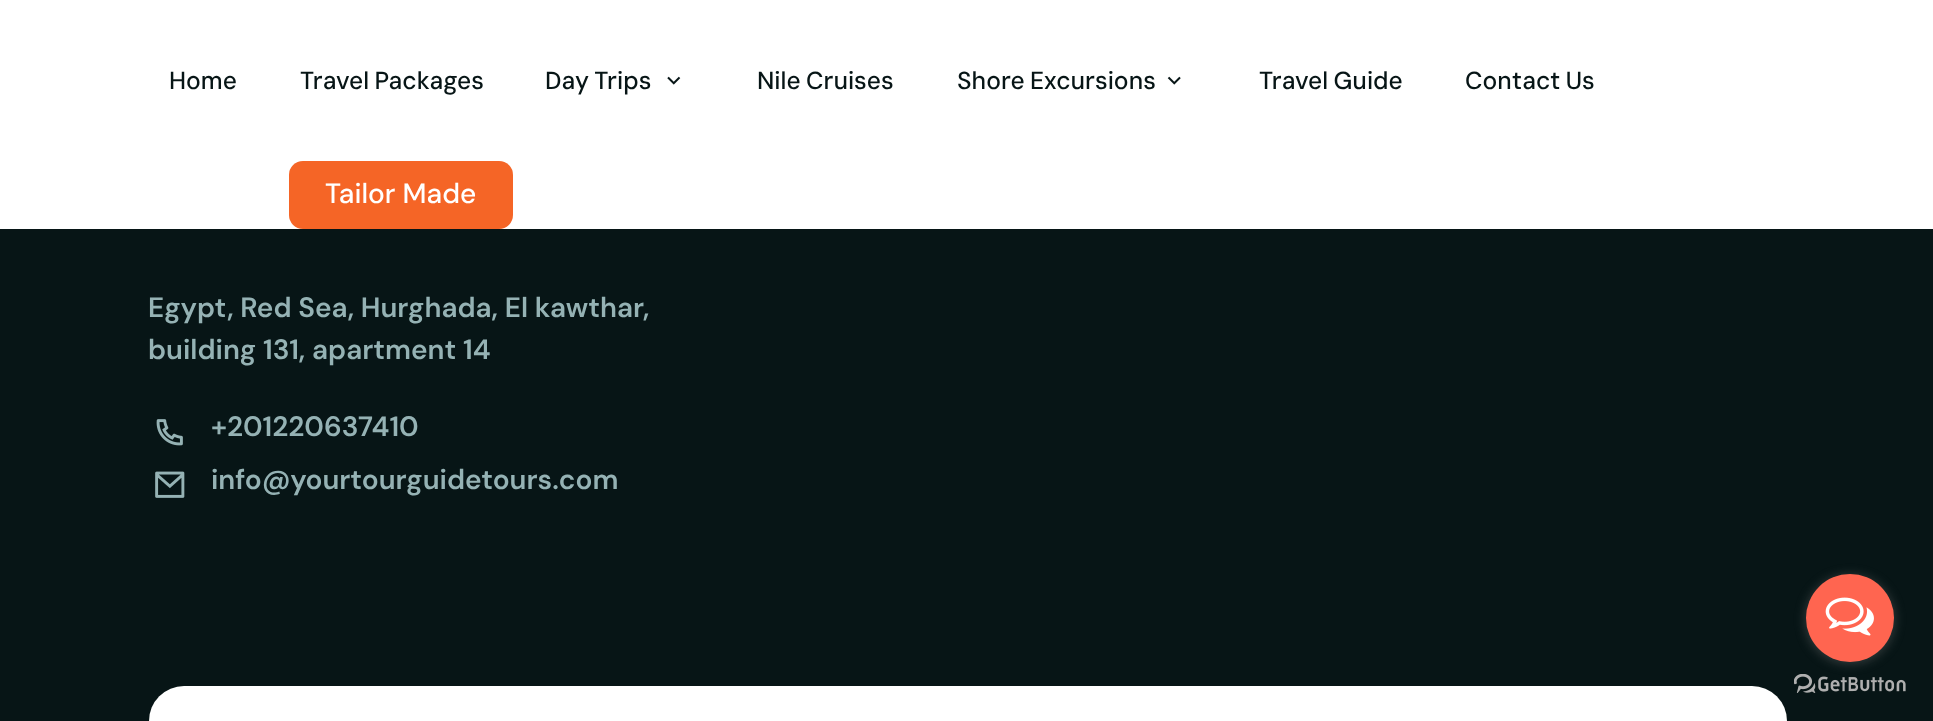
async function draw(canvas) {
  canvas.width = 1933
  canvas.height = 721
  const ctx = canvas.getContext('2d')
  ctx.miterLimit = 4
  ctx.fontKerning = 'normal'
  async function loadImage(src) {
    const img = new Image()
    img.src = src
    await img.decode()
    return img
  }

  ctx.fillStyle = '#071516'
  ctx.fillRect(0, 0, 1933, 721)
  ctx.fillStyle = '#fff'
  ctx.fillRect(0, 0, 1933, 229)
  ctx.font = '500 24.5px DM Sans'
  ctx.fillStyle = '#071516'
  ctx.fillText('Home', 169, 89)
  ctx.wordSpacing = '-1px'
  ctx.fillText('Travel Packages', 300, 89)
  ctx.fillText('Day Trips', 545, 89)
  ctx.drawImage(await loadImage('image0.png'), 667, 76, 14, 9)
  ctx.fillText('Nile Cruises', 757, 89)
  ctx.fillText('Shore Excursions', 957, 89)
  ctx.drawImage(await loadImage('image1.png'), 1167, 76, 14, 9)
  ctx.fillText('Travel Guide', 1259, 89)
  ctx.fillText('Contact Us', 1465, 89)
  ctx.fillStyle = '#f56526'
  ctx.beginPath()
  ctx.roundRect(289, 161, 224, 68, 14)
  ctx.fill()
  ctx.wordSpacing = '0px'
  ctx.font = '500 28px "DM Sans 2"'
  ctx.fillStyle = '#fff'
  ctx.fillText('Tailor Made', 325, 203)
  ctx.font = '600 28px DM Sans'
  ctx.fillStyle = '#95b2b4'
  ctx.fillText('Egypt, Red Sea, Hurghada, El kawthar,', 148, 317)
  ctx.fillText('building 131, apartment 14', 148, 359)
  ctx.drawImage(await loadImage('image2.png'), 156, 419, 27, 27)
  ctx.fillText('+201220637410', 211, 436)
  ctx.drawImage(await loadImage('image3.png'), 155, 471, 30, 27)
  ctx.fillText('info@yourtourguidetours.com', 211, 489)
  ctx.fillStyle = '#fff'
  ctx.beginPath()
  ctx.roundRect(149, 686, 1638, 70, 35)
  ctx.fill()
  ctx.drawImage(await loadImage('image5.png'), 1794, 674, 112, 19)
  ctx.fillStyle = '#88888866'
  ctx.filter = 'blur(6px)'
  ctx.beginPath()
  ctx.roundRect(1806, 576, 88, 87, 43.5)
  ctx.fill()
  ctx.filter = 'none'
  ctx.fillStyle = '#ff6550'
  ctx.beginPath()
  ctx.arc(1850, 618, 44, 0, 2 * Math.PI)
  ctx.fill()
  ctx.drawImage(await loadImage('image4.png'), 1825, 597, 49, 39)
}

draw(document.querySelector('canvas'))
